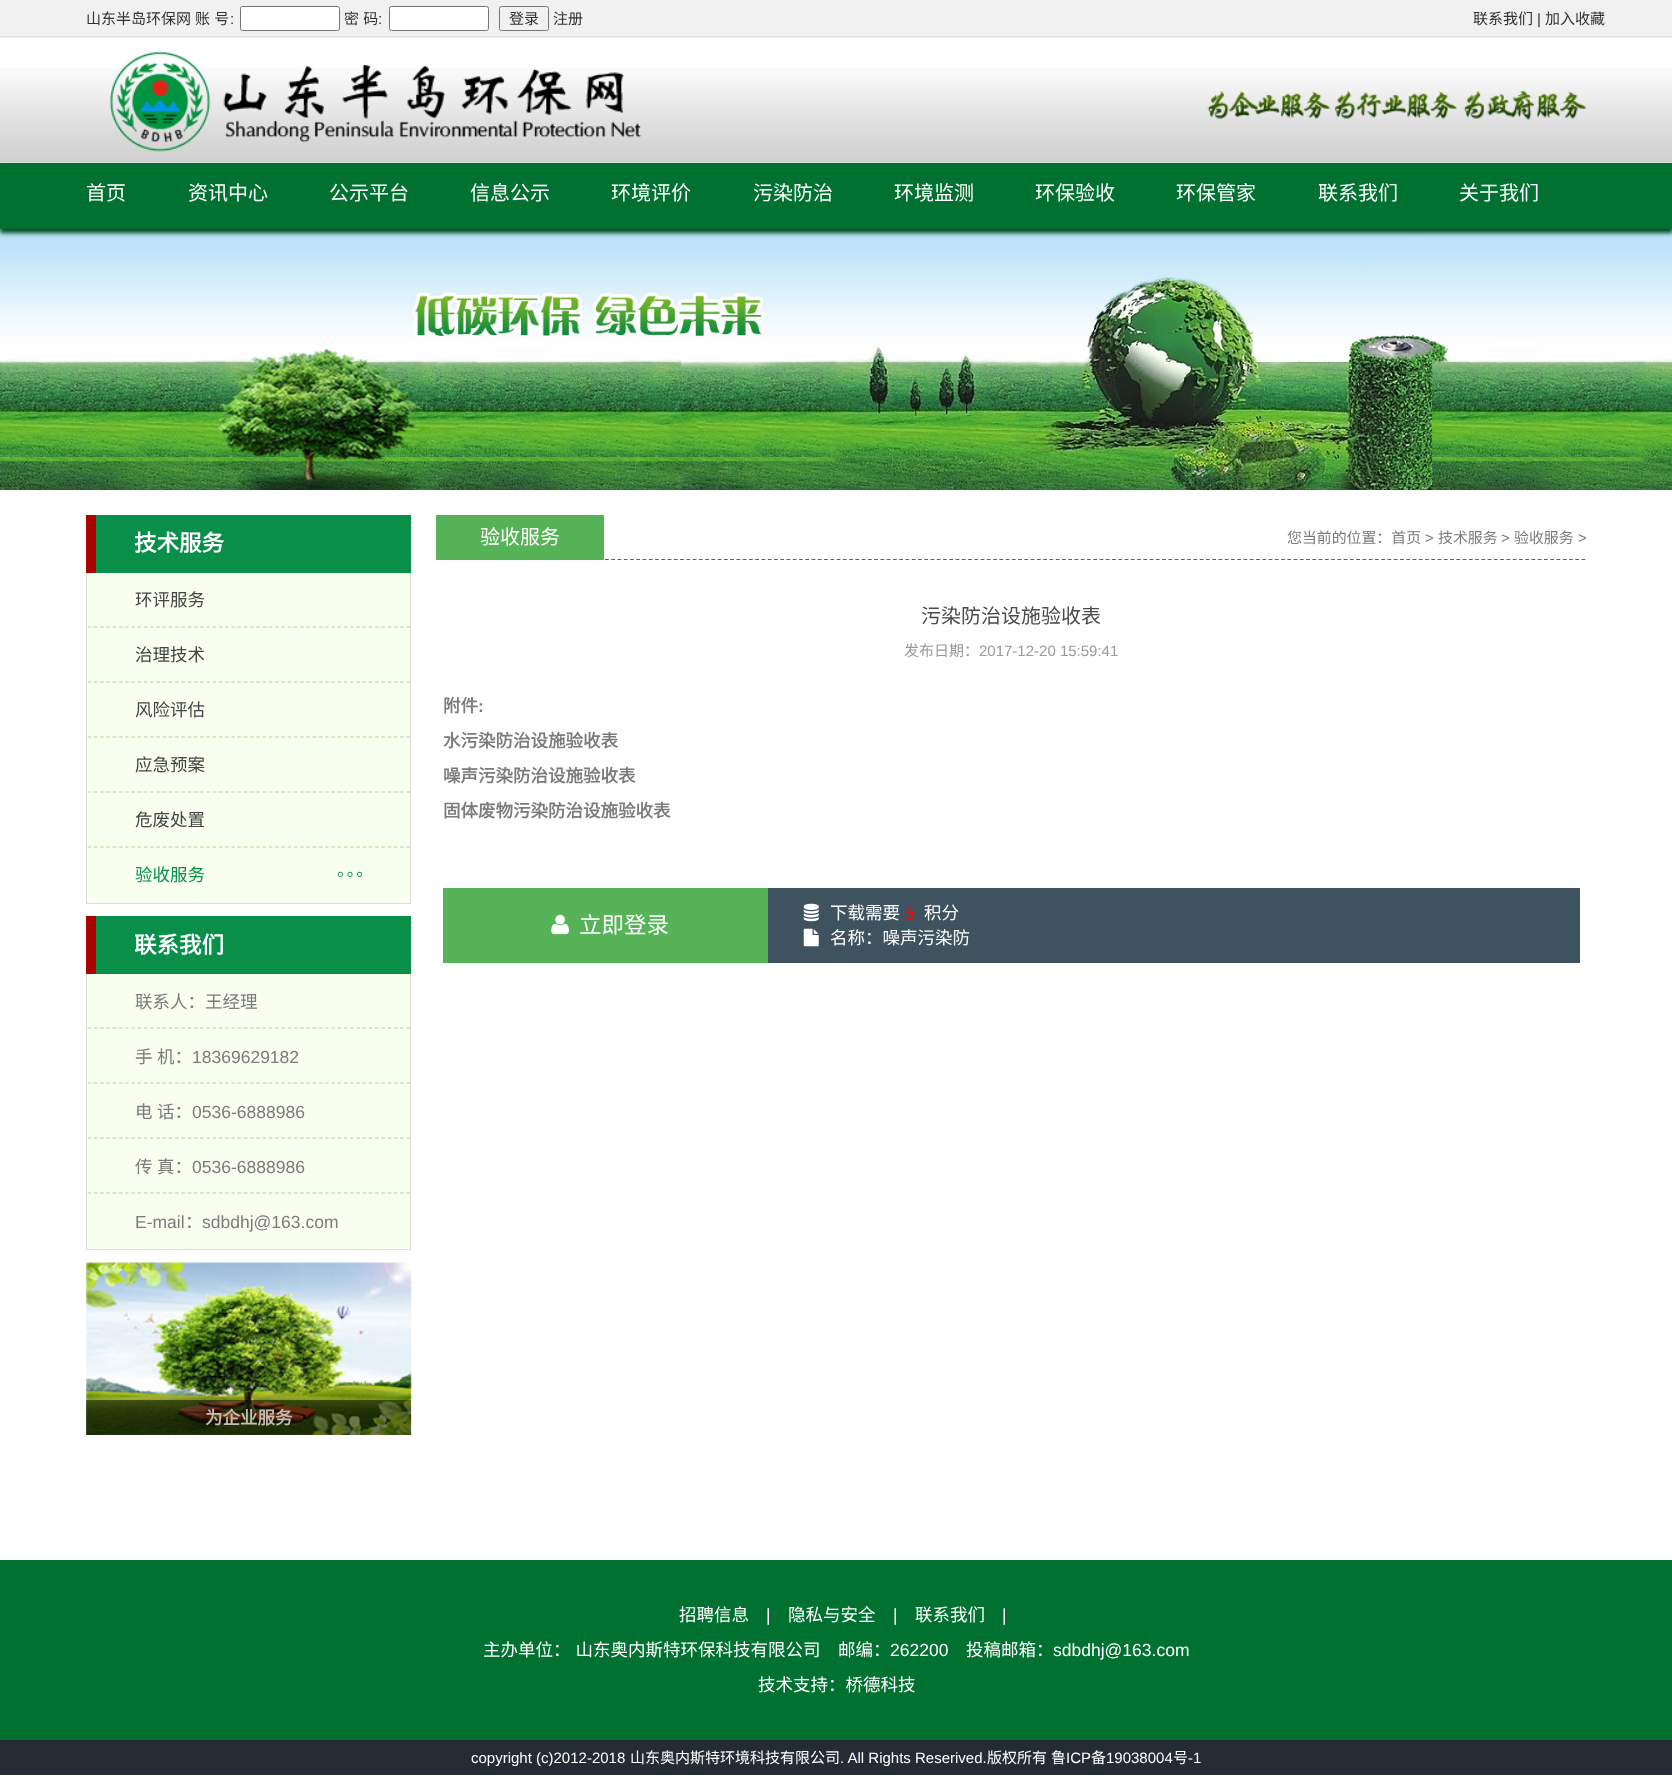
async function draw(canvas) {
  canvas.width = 1672
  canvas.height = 1779
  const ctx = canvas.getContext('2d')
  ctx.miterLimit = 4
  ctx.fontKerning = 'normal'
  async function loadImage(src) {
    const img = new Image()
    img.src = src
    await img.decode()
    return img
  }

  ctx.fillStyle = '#fff'
  ctx.fillRect(0, 0, 1672, 1779)
  ctx.fillStyle = '#f1f1f1'
  ctx.fillRect(0, 0, 1672, 38)
  ctx.fillStyle = '#ddd'
  ctx.fillRect(0, 36, 1672, 1)
  ctx.font = '15px Noto Sans CJK SC'
  ctx.fillStyle = '#323232'
  ctx.fillText('山东半岛环保网', 86, 24)
  ctx.wordSpacing = '1px'
  ctx.fillText('账 号', 195, 24)
  ctx.wordSpacing = '0px'
  ctx.font = '15px Liberation Sans'
  ctx.fillText(':', 230, 24)
  ctx.fillStyle = '#fff'
  ctx.beginPath()
  ctx.roundRect(240.5, 6.5, 99, 24, 2)
  ctx.fill()
  ctx.strokeStyle = '#767676'
  ctx.stroke()
  ctx.wordSpacing = '1px'
  ctx.font = '15px Noto Sans CJK SC'
  ctx.fillStyle = '#323232'
  ctx.fillText('密 码', 344, 24)
  ctx.wordSpacing = '0px'
  ctx.font = '15px Liberation Sans'
  ctx.fillText(':', 378, 24)
  ctx.fillStyle = '#fff'
  ctx.beginPath()
  ctx.roundRect(389.5, 6.5, 99, 24, 2)
  ctx.fill()
  ctx.stroke()
  ctx.beginPath()
  ctx.roundRect(499.5, 6.5, 49, 24, 2)
  ctx.stroke()
  ctx.font = '15px Noto Sans CJK SC'
  ctx.fillStyle = '#323232'
  ctx.fillText('登录', 509, 24)
  ctx.fillText('注册', 553, 24)
  ctx.fillText('联系我们', 1473, 24)
  ctx.font = '15px Liberation Sans'
  ctx.fillText('|', 1537, 24)
  ctx.font = '15px Noto Sans CJK SC'
  ctx.fillText('加入收藏', 1545, 24)
  ctx.drawImage(await loadImage('image0.png'), 0, 68, 1672, 95)
  ctx.drawImage(await loadImage('image1.png'), 109, 51, 533, 101)
  ctx.drawImage(await loadImage('image2.png'), 1207, 90, 380, 30)
  ctx.drawImage(await loadImage('image3.png'), 0, 229, 1672, 261)
  ctx.fillStyle = '#02471f'
  ctx.filter = 'blur(2px)'
  ctx.beginPath()
  ctx.rect(0, 166, 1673, 67)
  ctx.fill()
  ctx.filter = 'none'
  ctx.fillStyle = '#007130'
  ctx.fillRect(0, 163, 1672, 66)
  ctx.font = '20px Noto Sans CJK SC'
  ctx.fillStyle = '#fff'
  ctx.fillText('首页', 86, 200)
  ctx.fillText('资讯中心', 188, 200)
  ctx.fillText('公示平台', 329, 200)
  ctx.fillText('信息公示', 470, 200)
  ctx.fillText('环境评价', 611, 200)
  ctx.fillText('污染防治', 753, 200)
  ctx.fillText('环境监测', 894, 200)
  ctx.fillText('环保验收', 1035, 200)
  ctx.fillText('环保管家', 1176, 200)
  ctx.fillText('联系我们', 1318, 200)
  ctx.fillText('关于我们', 1459, 200)
  ctx.fillStyle = '#08904b'
  ctx.fillRect(96, 515, 315, 58)
  ctx.fillStyle = '#aa0400'
  ctx.fillRect(86, 515, 10, 58)
  ctx.font = 'bold 22.5px Noto Sans CJK SC'
  ctx.fillStyle = '#fff'
  ctx.fillText('技术服务', 134, 551)
  ctx.fillStyle = '#dcdcdc'
  ctx.fillRect(410, 573, 1, 331)
  ctx.fillRect(86, 903, 325, 1)
  ctx.fillRect(86, 573, 1, 331)
  ctx.fillStyle = '#f9ffee'
  ctx.fillRect(88, 573, 322, 330)
  ctx.beginPath()
  ctx.moveTo(87.5, 627)
  ctx.lineTo(410, 627)
  ctx.strokeStyle = '#aed69a'
  ctx.lineWidth = 1.2
  ctx.setLineDash([3.75, 2.5])
  ctx.stroke()
  ctx.font = '17.5px Noto Sans CJK SC'
  ctx.fillStyle = '#444'
  ctx.fillText('环评服务', 135, 606)
  ctx.beginPath()
  ctx.moveTo(87.5, 682)
  ctx.lineTo(410, 682)
  ctx.stroke()
  ctx.fillText('治理技术', 135, 661)
  ctx.beginPath()
  ctx.moveTo(87.5, 737)
  ctx.lineTo(410, 737)
  ctx.stroke()
  ctx.fillText('风险评估', 135, 716)
  ctx.beginPath()
  ctx.moveTo(87.5, 792)
  ctx.lineTo(410, 792)
  ctx.stroke()
  ctx.fillText('应急预案', 135, 771)
  ctx.beginPath()
  ctx.moveTo(87.5, 847)
  ctx.lineTo(410, 847)
  ctx.stroke()
  ctx.fillText('危废处置', 135, 826)
  ctx.fillStyle = '#08904b'
  ctx.fillText('验收服务', 135, 881)
  ctx.drawImage(await loadImage('image4.png'), 337, 871, 26, 6)
  ctx.fillRect(96, 916, 315, 58)
  ctx.fillStyle = '#aa0400'
  ctx.fillRect(86, 916, 10, 58)
  ctx.font = 'bold 22.5px Noto Sans CJK SC'
  ctx.fillStyle = '#fff'
  ctx.fillText('联系我们', 134, 953)
  ctx.fillStyle = '#dcdcdc'
  ctx.fillRect(410, 974, 1, 276)
  ctx.fillRect(86, 1249, 325, 1)
  ctx.fillRect(86, 974, 1, 276)
  ctx.fillStyle = '#f9ffee'
  ctx.fillRect(88, 974, 322, 275)
  ctx.beginPath()
  ctx.moveTo(87.5, 1028)
  ctx.lineTo(410, 1028)
  ctx.stroke()
  ctx.font = '17.5px Noto Sans CJK SC'
  ctx.fillStyle = '#7b7b7b'
  ctx.fillText('联系人：王经理', 135, 1008)
  ctx.beginPath()
  ctx.moveTo(87.5, 1083)
  ctx.lineTo(410, 1083)
  ctx.stroke()
  ctx.fillText('手', 135, 1063)
  ctx.fillText('机：', 157, 1063)
  ctx.font = '17.5px Liberation Sans'
  ctx.fillText('18369629182', 192, 1063)
  ctx.beginPath()
  ctx.moveTo(87.5, 1138)
  ctx.lineTo(410, 1138)
  ctx.stroke()
  ctx.font = '17.5px Noto Sans CJK SC'
  ctx.fillText('电', 135, 1118)
  ctx.fillText('话：', 157, 1118)
  ctx.font = '17.5px Liberation Sans'
  ctx.fillText('0536-6888986', 192, 1118)
  ctx.beginPath()
  ctx.moveTo(87.5, 1193)
  ctx.lineTo(410, 1193)
  ctx.stroke()
  ctx.font = '17.5px Noto Sans CJK SC'
  ctx.fillText('传', 135, 1173)
  ctx.fillText('真：', 157, 1173)
  ctx.font = '17.5px Liberation Sans'
  ctx.fillText('0536-6888986', 192, 1173)
  ctx.fillText('E-mail', 135, 1228)
  ctx.font = '17.5px Noto Sans CJK SC'
  ctx.fillText('：', 185, 1228)
  ctx.font = '17.5px Liberation Sans'
  ctx.fillText('sdbdhj@163.com', 202, 1228)
  ctx.drawImage(await loadImage('image5.png'), 86, 1262, 326, 173)
  ctx.fillStyle = '#00000080'
  ctx.fillRect(86, 1400, 325, 35)
  ctx.font = 'bold 17.5px Noto Sans CJK SC'
  ctx.fillStyle = '#c3beb5'
  ctx.fillText('为企业服务', 205, 1424)
  ctx.beginPath()
  ctx.moveTo(436, 559.5)
  ctx.lineTo(1586, 559.5)
  ctx.strokeStyle = '#08904b'
  ctx.setLineDash([3.75, 2.51])
  ctx.stroke()
  ctx.fillStyle = '#56b358'
  ctx.fillRect(436, 515, 168, 45)
  ctx.font = '20px Noto Sans CJK SC'
  ctx.fillStyle = '#fff'
  ctx.fillText('验收服务', 480, 544)
  ctx.font = '14.9px Noto Sans CJK SC'
  ctx.fillStyle = '#7b7b7b'
  ctx.fillText('您当前的位置：首页', 1287, 543)
  ctx.font = '14.9px Liberation Sans'
  ctx.fillText('>', 1425, 543)
  ctx.font = '14.9px Noto Sans CJK SC'
  ctx.fillText('技术服务', 1438, 543)
  ctx.font = '14.9px Liberation Sans'
  ctx.fillText('>', 1501, 543)
  ctx.font = '14.9px Noto Sans CJK SC'
  ctx.fillText('验收服务', 1514, 543)
  ctx.font = '14.9px Liberation Sans'
  ctx.fillText('>', 1578, 543)
  ctx.font = '20px Noto Sans CJK SC'
  ctx.fillStyle = '#4a4a4a'
  ctx.fillText('污染防治设施验收表', 921, 623)
  ctx.font = '15px Noto Sans CJK SC'
  ctx.fillStyle = '#999'
  ctx.fillText('发布日期：', 904, 656)
  ctx.font = '15px Liberation Sans'
  ctx.fillText('2017-12-20 15:59:41', 979, 656)
  ctx.font = 'bold 17.5px Noto Sans CJK SC'
  ctx.fillStyle = '#7b7b7b'
  ctx.fillText('附件', 443, 712)
  ctx.font = 'bold 17.5px Liberation Sans'
  ctx.fillText(':', 478, 712)
  ctx.font = 'bold 17.5px Noto Sans CJK SC'
  ctx.fillText('水污染防治设施验收表', 443, 747)
  ctx.fillText('噪声污染防治设施验收表', 443, 782)
  ctx.fillText('固体废物污染防治设施验收表', 443, 817)
  ctx.fillStyle = '#3f5260'
  ctx.fillRect(768, 888, 812, 75)
  ctx.fillStyle = '#56b358'
  ctx.fillRect(443, 888, 325, 75)
  ctx.drawImage(await loadImage('image6.png'), 551, 914, 18, 21)
  ctx.font = '22.5px Noto Sans CJK SC'
  ctx.fillStyle = '#fff'
  ctx.fillText('立即登录', 579, 933)
  ctx.drawImage(await loadImage('image7.png'), 803, 903, 16, 19)
  ctx.font = '17.5px Noto Sans CJK SC'
  ctx.fillText('下载需要', 830, 919)
  ctx.font = 'italic 17.5px Liberation Sans'
  ctx.fillStyle = '#f00'
  ctx.fillText('5', 905, 919)
  ctx.font = '17.5px Noto Sans CJK SC'
  ctx.fillStyle = '#fff'
  ctx.fillText('积分', 924, 919)
  ctx.drawImage(await loadImage('image8.png'), 803, 928, 16, 19)
  ctx.fillText('名称：噪声污染防', 830, 944)
  ctx.fillStyle = '#007130'
  ctx.fillRect(0, 1560, 1672, 180)
  ctx.fillStyle = '#fff'
  ctx.fillText('招聘信息', 679, 1621)
  ctx.font = '17.5px Liberation Sans'
  ctx.fillText('|', 766, 1621)
  ctx.font = '17.5px Noto Sans CJK SC'
  ctx.fillText('隐私与安全', 788, 1621)
  ctx.font = '17.5px Liberation Sans'
  ctx.fillText('|', 893, 1621)
  ctx.font = '17.5px Noto Sans CJK SC'
  ctx.fillText('联系我们', 915, 1621)
  ctx.font = '17.5px Liberation Sans'
  ctx.fillText('|', 1002, 1621)
  ctx.wordSpacing = '1px'
  ctx.font = '17.5px Noto Sans CJK SC'
  ctx.fillText('主办单位： 山东奥内斯特环保科技有限公司', 483, 1656)
  ctx.wordSpacing = '0px'
  ctx.fillText('邮编：', 838, 1656)
  ctx.font = '17.5px Liberation Sans'
  ctx.fillText('262200', 890, 1656)
  ctx.font = '17.5px Noto Sans CJK SC'
  ctx.fillText('投稿邮箱：', 966, 1656)
  ctx.font = '17.5px Liberation Sans'
  ctx.fillText('sdbdhj@163.com', 1053, 1656)
  ctx.font = '17.5px Noto Sans CJK SC'
  ctx.fillText('技术支持：桥德科技', 758, 1691)
  ctx.fillStyle = '#232c33'
  ctx.fillRect(0, 1740, 1672, 35)
  ctx.font = '15px Liberation Sans'
  ctx.fillStyle = '#fff'
  ctx.fillText('copyright (c)2012-2018', 471, 1763)
  ctx.font = '15px Noto Sans CJK SC'
  ctx.fillText('山东奥内斯特环境科技有限公司', 630, 1763)
  ctx.font = '15px Liberation Sans'
  ctx.fillText('. All Rights Reserived.', 840, 1763)
  ctx.font = '15px Noto Sans CJK SC'
  ctx.fillText('版权所有', 987, 1763)
  ctx.fillText('鲁', 1051, 1763)
  ctx.font = '15px Liberation Sans'
  ctx.fillText('ICP', 1066, 1763)
  ctx.font = '15px Noto Sans CJK SC'
  ctx.fillText('备', 1091, 1763)
  ctx.font = '15px Liberation Sans'
  ctx.fillText('19038004', 1106, 1763)
  ctx.font = '15px Noto Sans CJK SC'
  ctx.fillText('号', 1173, 1763)
  ctx.font = '15px Liberation Sans'
  ctx.fillText('-1', 1188, 1763)
}

draw(document.querySelector('canvas'))
